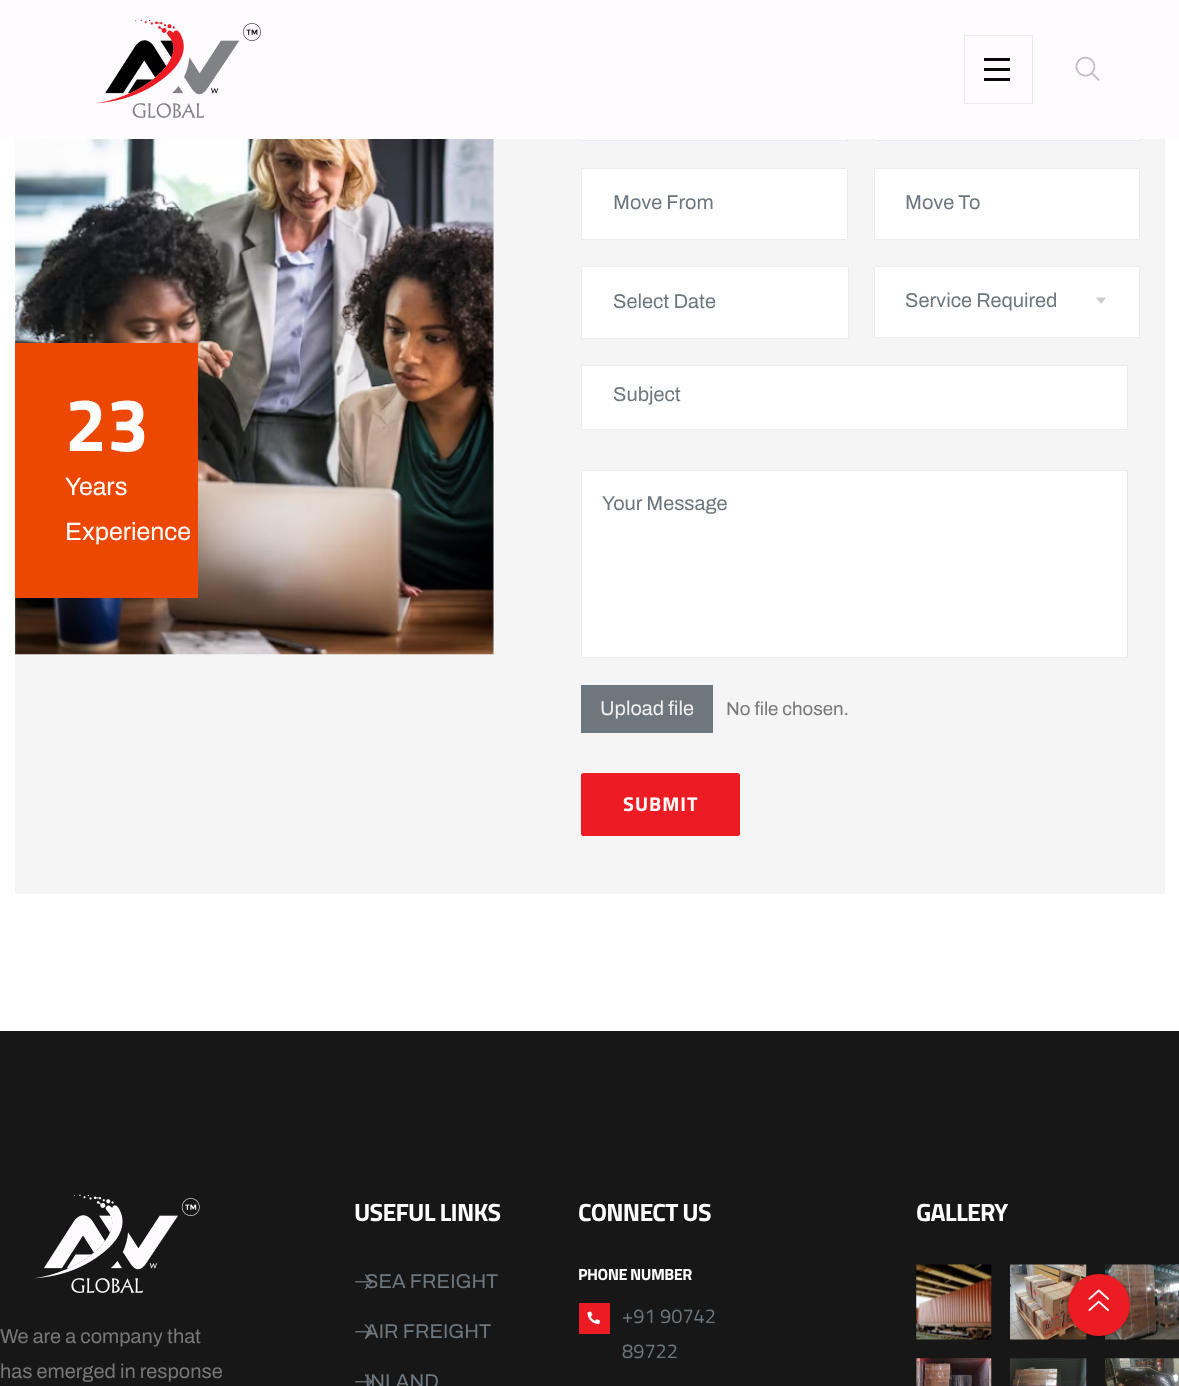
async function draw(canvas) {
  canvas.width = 1179
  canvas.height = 1386
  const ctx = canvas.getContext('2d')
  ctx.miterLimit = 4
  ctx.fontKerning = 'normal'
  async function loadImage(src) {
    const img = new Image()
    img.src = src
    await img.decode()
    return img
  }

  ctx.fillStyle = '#fff'
  ctx.fillRect(0, 0, 1179, 1386)
  ctx.fillStyle = '#f5f5f5'
  ctx.fillRect(15, 139, 1150, 755)
  ctx.fillStyle = '#fff'
  ctx.fillRect(582, 139, 265, 1)
  ctx.strokeStyle = '#eaecf1'
  ctx.strokeRect(581.5, 69.5, 266, 71)
  ctx.fillRect(875, 139, 264, 1)
  ctx.strokeRect(874.5, 69.5, 265, 71)
  ctx.fillStyle = '#fefcff'
  ctx.fillRect(0, 0, 1179, 139)
  ctx.drawImage(await loadImage('image0.png'), 96, 19, 165, 99)
  ctx.strokeStyle = '#e9e9e9'
  ctx.strokeRect(964.5, 35.5, 68, 68)
  ctx.fillStyle = '#0c0a0a'
  ctx.fillRect(984, 58, 26, 3)
  ctx.fillRect(984, 68, 26, 3)
  ctx.fillRect(984, 78, 26, 3)
  ctx.drawImage(await loadImage('image1.png'), 1075, 56, 25, 25)
  ctx.drawImage(await loadImage('image2.png'), 15, 139, 479, 516)
  ctx.fillStyle = '#ec4802'
  ctx.fillRect(15, 343, 183, 255)
  ctx.font = 'bold 75px Titillium Web'
  ctx.fillStyle = '#fff'
  ctx.fillText('23', 65, 451)
  ctx.font = '25px Archivo'
  ctx.fillText('Years', 65, 495)
  ctx.fillText('Experience', 65, 540)
  ctx.beginPath()
  ctx.rect(581.5, 168.5, 266, 71)
  ctx.fill()
  ctx.strokeStyle = '#eaecf1'
  ctx.stroke()
  ctx.font = '20px Archivo'
  ctx.fillStyle = '#6e777d'
  ctx.fillText('Move From', 613, 209)
  ctx.fillStyle = '#fff'
  ctx.beginPath()
  ctx.rect(874.5, 168.5, 265, 71)
  ctx.fill()
  ctx.stroke()
  ctx.fillStyle = '#6e777d'
  ctx.fillText('Move To', 905, 209)
  ctx.fillStyle = '#fff'
  ctx.beginPath()
  ctx.rect(581.5, 266.5, 267, 72)
  ctx.fill()
  ctx.stroke()
  ctx.fillStyle = '#6e777d'
  ctx.fillText('Select Date', 613, 308)
  ctx.fillStyle = '#fff'
  ctx.beginPath()
  ctx.rect(874.5, 266.5, 265, 71)
  ctx.fill()
  ctx.stroke()
  ctx.fillStyle = '#6e777d'
  ctx.fillText('Service Required', 905, 307)
  ctx.fillStyle = '#ccc'
  ctx.beginPath()
  ctx.moveTo(1096, 297.5)
  ctx.lineTo(1106, 297.5)
  ctx.lineTo(1101, 304)
  ctx.closePath()
  ctx.fill()
  ctx.fillStyle = '#fff'
  ctx.beginPath()
  ctx.rect(581.5, 365.5, 546, 64)
  ctx.fill()
  ctx.stroke()
  ctx.fillStyle = '#6e777d'
  ctx.fillText('Subject', 613, 401)
  ctx.fillStyle = '#fff'
  ctx.beginPath()
  ctx.rect(581.5, 470.5, 546, 187)
  ctx.fill()
  ctx.strokeStyle = '#eaeaea'
  ctx.stroke()
  ctx.fillStyle = '#6e777d'
  ctx.fillText('Your Message', 602, 510)
  ctx.fillRect(581, 685, 132, 48)
  ctx.fillStyle = '#f0f0f0'
  ctx.fillText('Upload file', 600, 715)
  ctx.font = '18.75px Archivo'
  ctx.fillStyle = '#777'
  ctx.fillText('No file chosen.', 726, 715)
  ctx.fillStyle = '#ed1c24'
  ctx.beginPath()
  ctx.roundRect(581, 773, 159, 63, 2.5)
  ctx.fill()
  ctx.letterSpacing = '1px'
  ctx.font = 'bold 20px Titillium Web'
  ctx.fillStyle = '#fff'
  ctx.fillText('SUBMIT', 623, 811)
  ctx.fillStyle = '#171717'
  ctx.fillRect(0, 1031, 1179, 355)
  ctx.letterSpacing = '-0.75px'
  ctx.font = 'bold 25px Titillium Web'
  ctx.fillStyle = '#fff'
  ctx.fillText('USEFUL LINKS', 354, 1221)
  ctx.letterSpacing = '0px'
  ctx.font = '20px Archivo'
  ctx.fillStyle = '#6e777d'
  ctx.fillText('SEA FREIGHT', 365, 1288)
  ctx.drawImage(await loadImage('image3.png'), 355, 1274, 18, 16)
  ctx.fillText('AIR FREIGHT', 365, 1338)
  ctx.drawImage(await loadImage('image4.png'), 355, 1324, 18, 16)
  ctx.fillText('INLAND', 365, 1388)
  ctx.drawImage(await loadImage('image5.png'), 355, 1374, 18, 12)
  ctx.letterSpacing = '-0.75px'
  ctx.font = 'bold 25px Titillium Web'
  ctx.fillStyle = '#fff'
  ctx.fillText('CONNECT US', 578, 1221)
  ctx.letterSpacing = '-0.5px'
  ctx.font = 'bold 16.25px Titillium Web'
  ctx.fillText('PHONE NUMBER', 578, 1280)
  ctx.fillStyle = '#ed1c24'
  ctx.fillRect(579, 1303, 31, 31)
  ctx.drawImage(await loadImage('image6.png'), 587, 1311, 13, 14)
  ctx.letterSpacing = '0px'
  ctx.font = '20px Titillium Web'
  ctx.fillStyle = '#6e777d'
  ctx.fillText('+91 90742', 622, 1323)
  ctx.fillText('89722', 622, 1358)
  ctx.letterSpacing = '-0.75px'
  ctx.font = 'bold 25px Titillium Web'
  ctx.fillStyle = '#fff'
  ctx.fillText('GALLERY', 916, 1221)
  ctx.drawImage(await loadImage('image7.png'), 916, 1264, 76, 76)
  ctx.drawImage(await loadImage('image8.png'), 1010, 1264, 77, 76)
  ctx.drawImage(await loadImage('image9.png'), 1105, 1264, 74, 76)
  ctx.drawImage(await loadImage('image10.png'), 916, 1358, 76, 28)
  ctx.drawImage(await loadImage('image11.png'), 1010, 1358, 77, 28)
  ctx.drawImage(await loadImage('image12.png'), 1105, 1358, 74, 28)
  ctx.drawImage(await loadImage('image13.png'), 34, 1194, 166, 99)
  ctx.letterSpacing = '0px'
  ctx.font = '20px Archivo'
  ctx.fillStyle = '#777'
  ctx.fillText('We are a company that', 0, 1343)
  ctx.fillText('has emerged in response', 0, 1378)
  ctx.fillStyle = '#00000066'
  ctx.filter = 'blur(1px)'
  ctx.beginPath()
  ctx.roundRect(1068, 1274, 62, 62, 31)
  ctx.fill()
  ctx.filter = 'none'
  ctx.fillStyle = '#ed1c24'
  ctx.beginPath()
  ctx.arc(1099, 1305, 31, 0, 2 * Math.PI)
  ctx.fill()
  ctx.drawImage(await loadImage('image14.png'), 1088, 1289, 21, 22)
}

draw(document.querySelector('canvas'))
